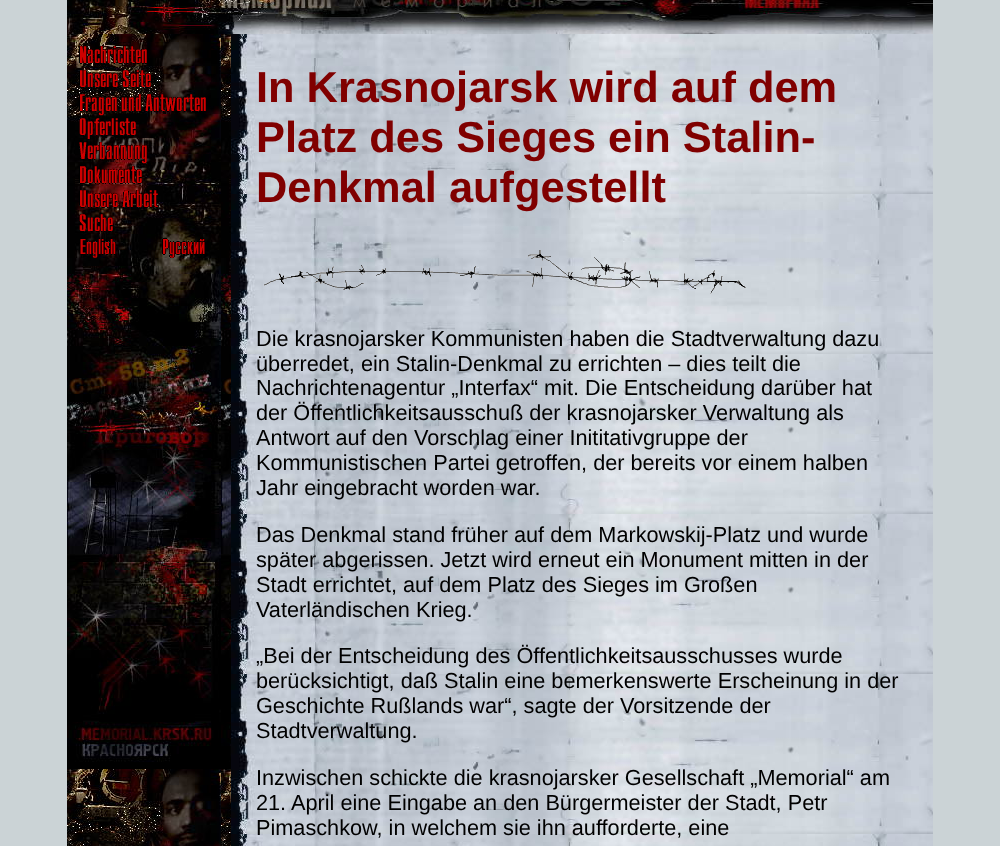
async function draw(canvas) {
  canvas.width = 1000
  canvas.height = 846
  const ctx = canvas.getContext('2d')
  ctx.miterLimit = 4
  ctx.fontKerning = 'normal'
  async function loadImage(src) {
    const img = new Image()
    img.src = src
    await img.decode()
    return img
  }

  ctx.fillStyle = '#cbd3d6'
  ctx.fillRect(0, 0, 1000, 846)
  ctx.drawImage(await loadImage('image0.png'), 67, 0, 866, 34)
  ctx.drawImage(await loadImage('image1.png'), 67, 34, 164, 812)
  ctx.drawImage(await loadImage('image2.png'), 79, 46, 68, 18)
  ctx.drawImage(await loadImage('image3.png'), 79, 70, 72, 18)
  ctx.drawImage(await loadImage('image4.png'), 79, 94, 127, 22)
  ctx.drawImage(await loadImage('image5.png'), 79, 118, 57, 22)
  ctx.drawImage(await loadImage('image6.png'), 79, 142, 68, 22)
  ctx.drawImage(await loadImage('image7.png'), 79, 166, 63, 18)
  ctx.drawImage(await loadImage('image8.png'), 79, 190, 79, 18)
  ctx.drawImage(await loadImage('image9.png'), 79, 214, 34, 18)
  ctx.drawImage(await loadImage('image10.png'), 80, 238, 36, 20)
  ctx.drawImage(await loadImage('image11.png'), 162, 238, 43, 20)
  ctx.drawImage(await loadImage('image12.png'), 231, 34, 702, 812)
  ctx.font = 'bold 43.4px Liberation Sans'
  ctx.fillStyle = '#800000'
  ctx.fillText('In Krasnojarsk wird auf dem', 256, 102)
  ctx.fillText('Platz des Sieges ein Stalin-', 256, 152)
  ctx.fillText('Denkmal aufgestellt', 256, 202)
  ctx.drawImage(await loadImage('image13.png'), 264, 250, 482, 44)
  ctx.font = '21.7px Liberation Sans'
  ctx.fillStyle = '#000'
  ctx.fillText('Die krasnojarsker Kommunisten haben die Stadtverwaltung dazu', 256, 346)
  ctx.fillText('überredet, ein Stalin-Denkmal zu errichten – dies teilt die', 256, 371)
  ctx.fillText('Nachrichtenagentur „Interfax“ mit. Die Entscheidung darüber hat', 256, 395)
  ctx.fillText('der Öffentlichkeitsausschuß der krasnojarsker Verwaltung als', 256, 420)
  ctx.fillText('Antwort auf den Vorschlag einer Inititativgruppe der', 256, 445)
  ctx.fillText('Kommunistischen Partei getroffen, der bereits vor einem halben', 256, 470)
  ctx.fillText('Jahr eingebracht worden war.', 256, 495)
  ctx.fillText('Das Denkmal stand früher auf dem Markowskij-Platz und wurde', 256, 542)
  ctx.fillText('später abgerissen. Jetzt wird erneut ein Monument mitten in der', 256, 567)
  ctx.fillText('Stadt errichtet, auf dem Platz des Sieges im Großen', 256, 592)
  ctx.fillText('Vaterländischen Krieg.', 256, 617)
  ctx.fillText('„Bei der Entscheidung des Öffentlichkeitsausschusses wurde', 256, 663)
  ctx.fillText('berücksichtigt, daß Stalin eine bemerkenswerte Erscheinung in der', 256, 688)
  ctx.fillText('Geschichte Rußlands war“, sagte der Vorsitzende der', 256, 713)
  ctx.fillText('Stadtverwaltung.', 256, 738)
  ctx.fillText('Inzwischen schickte die krasnojarsker Gesellschaft „Memorial“ am', 256, 785)
  ctx.fillText('21. April eine Eingabe an den Bürgermeister der Stadt, Petr', 256, 810)
  ctx.fillText('Pimaschkow, in welchem sie ihn aufforderte, eine', 256, 835)
}

draw(document.querySelector('canvas'))
